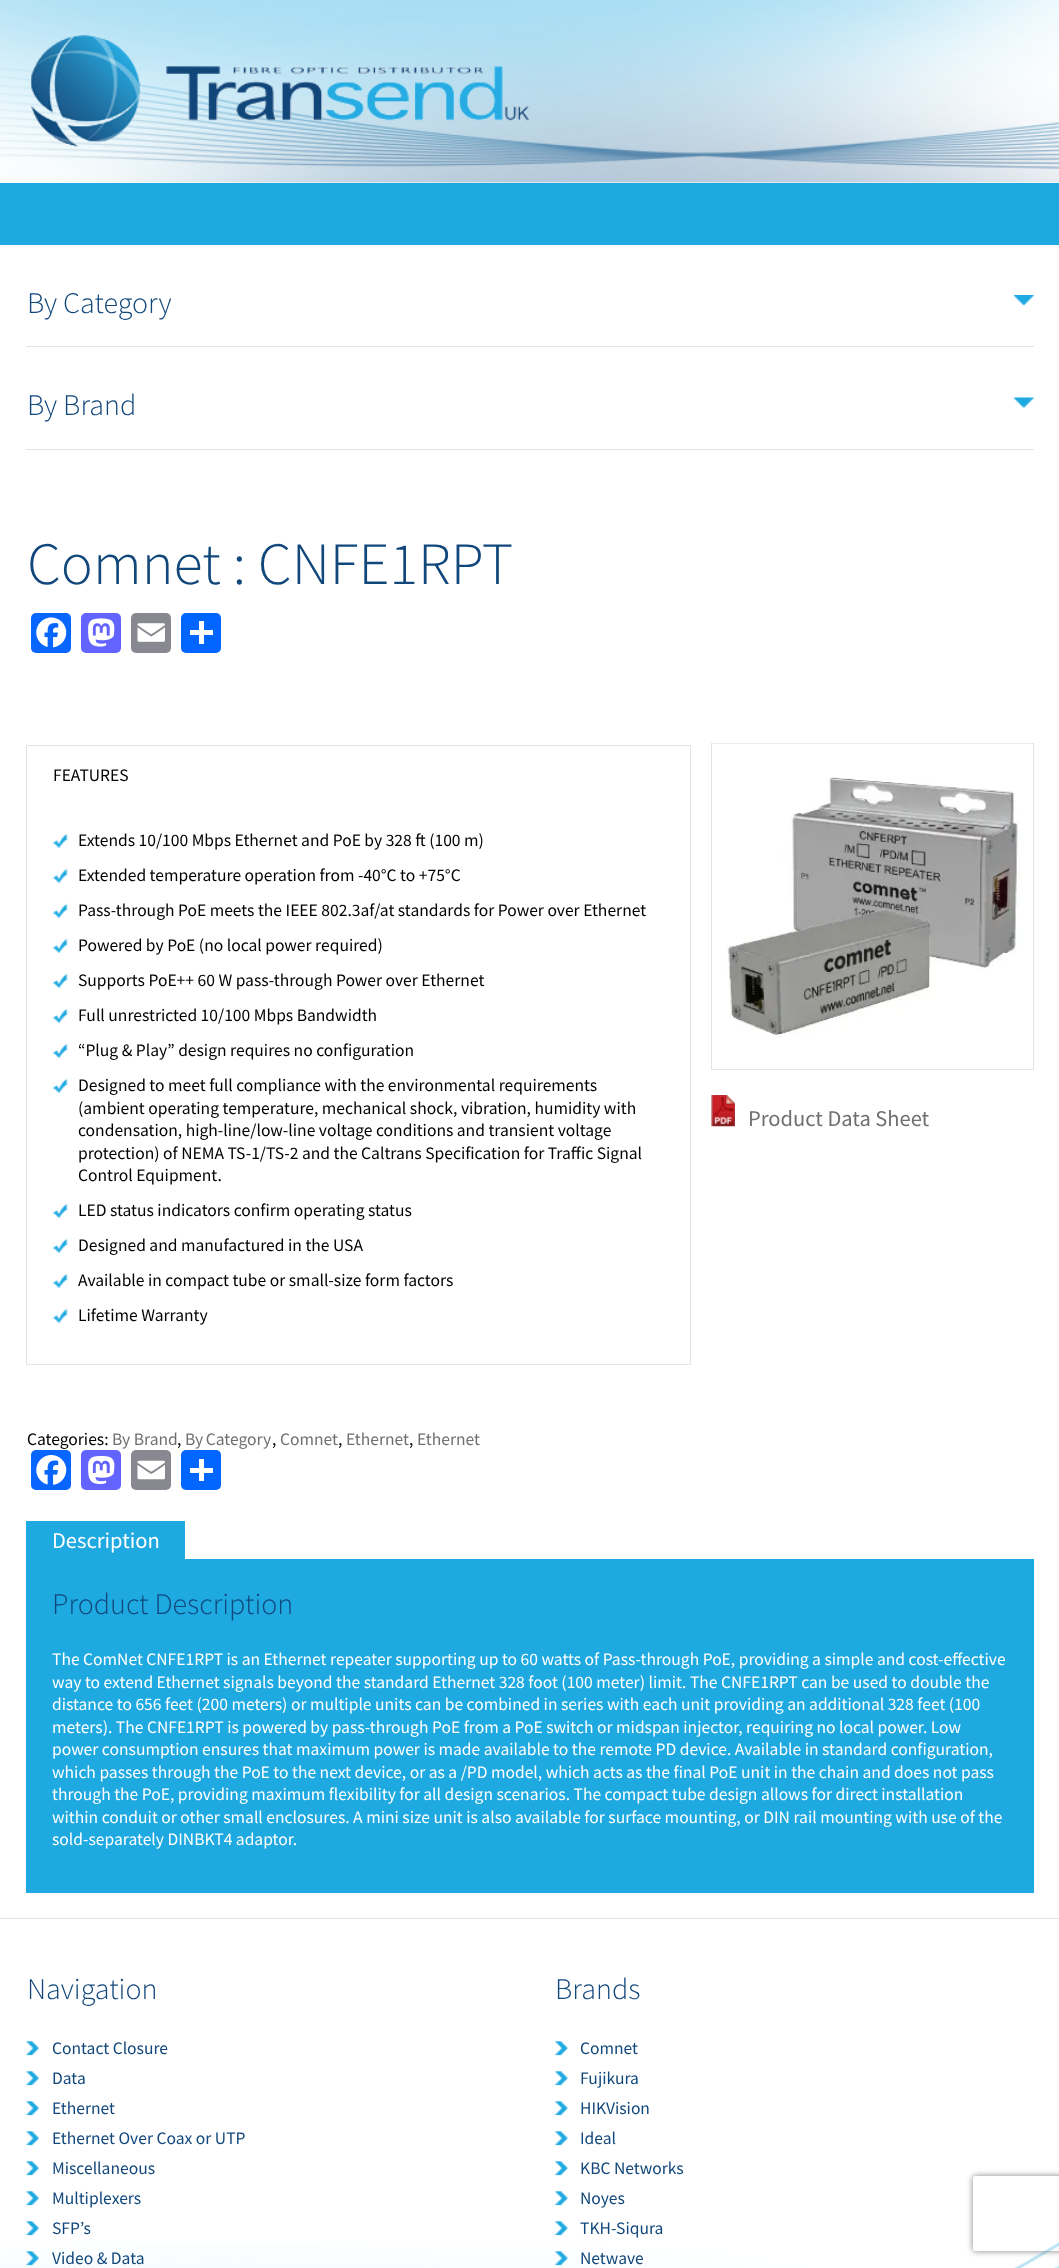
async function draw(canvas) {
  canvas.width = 1059
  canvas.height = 2268
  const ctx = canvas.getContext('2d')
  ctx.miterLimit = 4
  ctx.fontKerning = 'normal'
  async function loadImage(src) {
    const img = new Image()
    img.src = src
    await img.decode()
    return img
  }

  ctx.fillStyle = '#fff'
  ctx.fillRect(0, 0, 1059, 2268)
  ctx.drawImage(await loadImage('image0.png'), 0, 0, 1059, 183)
  ctx.drawImage(await loadImage('image1.png'), 30, 34, 499, 113)
  ctx.fillStyle = '#1ea9e1'
  ctx.fillRect(0, 183, 1059, 62)
  ctx.fillStyle = '#e4e4e4'
  ctx.fillRect(26, 346, 1008, 1)
  ctx.font = '300 30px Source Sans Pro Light'
  ctx.fillStyle = '#11477b'
  ctx.fillText('By Category', 27, 313)
  ctx.drawImage(await loadImage('image2.png'), 1013, 295, 21, 11)
  ctx.fillStyle = '#e4e4e4'
  ctx.fillRect(26, 449, 1008, 1)
  ctx.fillStyle = '#11477b'
  ctx.fillText('By Brand', 27, 415)
  ctx.drawImage(await loadImage('image3.png'), 1013, 397, 21, 11)
  ctx.font = '300 60px Source Sans Pro Light'
  ctx.fillText('Comnet : CNFE1RPT', 27, 584)
  ctx.fillStyle = '#0866ff'
  ctx.beginPath()
  ctx.roundRect(31, 613, 40, 40, 5)
  ctx.fill()
  ctx.drawImage(await loadImage('image4.png'), 36, 617, 31, 31)
  ctx.fillStyle = '#6364ff'
  ctx.beginPath()
  ctx.roundRect(81, 613, 40, 40, 5)
  ctx.fill()
  ctx.drawImage(await loadImage('image5.png'), 88, 618, 27, 29)
  ctx.fillStyle = '#888990'
  ctx.beginPath()
  ctx.roundRect(131, 613, 40, 40, 5)
  ctx.fill()
  ctx.drawImage(await loadImage('image6.png'), 137, 623, 28, 19)
  ctx.fillStyle = '#0166ff'
  ctx.beginPath()
  ctx.roundRect(181, 613, 40, 40, 5)
  ctx.fill()
  ctx.fillStyle = '#fff'
  ctx.fillRect(199, 621, 5, 23)
  ctx.fillRect(190, 630, 23, 5)
  ctx.strokeStyle = '#e4e4e4'
  ctx.strokeRect(26.5, 745.5, 664, 619)
  ctx.font = '17.5px Source Sans Pro'
  ctx.fillStyle = '#000'
  ctx.fillText('FEATURES', 53, 781)
  ctx.drawImage(await loadImage('image7.png'), 52, 833, 16, 16)
  ctx.fillText('Extends 10/100 Mbps Ethernet and PoE by 328 ft (100 m)', 78, 846)
  ctx.drawImage(await loadImage('image7.png'), 52, 868, 16, 16)
  ctx.fillText('Extended temperature operation from -40°C to +75°C', 78, 881)
  ctx.drawImage(await loadImage('image7.png'), 52, 903, 16, 16)
  ctx.fillText('Pass-through PoE meets the IEEE 802.3af/at standards for Power over Ethernet', 78, 916)
  ctx.drawImage(await loadImage('image7.png'), 52, 938, 16, 16)
  ctx.fillText('Powered by PoE (no local power required)', 78, 951)
  ctx.drawImage(await loadImage('image7.png'), 52, 973, 16, 16)
  ctx.fillText('Supports PoE++ 60 W pass-through Power over Ethernet', 78, 986)
  ctx.drawImage(await loadImage('image7.png'), 52, 1008, 16, 16)
  ctx.fillText('Full unrestricted 10/100 Mbps Bandwidth', 78, 1021)
  ctx.drawImage(await loadImage('image7.png'), 52, 1043, 16, 16)
  ctx.fillText('“Plug & Play” design requires no configuration', 78, 1056)
  ctx.drawImage(await loadImage('image7.png'), 52, 1078, 16, 16)
  ctx.fillText('Designed to meet full compliance with the environmental requirements', 78, 1091)
  ctx.fillText('(ambient operating temperature, mechanical shock, vibration, humidity with', 78, 1114)
  ctx.fillText('condensation, high-line/low-line voltage conditions and transient voltage', 78, 1136)
  ctx.fillText('protection) of NEMA TS-1/TS-2 and the Caltrans Specification for Traffic Signal', 78, 1159)
  ctx.fillText('Control Equipment.', 78, 1181)
  ctx.drawImage(await loadImage('image7.png'), 52, 1203, 16, 16)
  ctx.fillText('LED status indicators confirm operating status', 78, 1216)
  ctx.drawImage(await loadImage('image7.png'), 52, 1238, 16, 16)
  ctx.fillText('Designed and manufactured in the USA', 78, 1251)
  ctx.drawImage(await loadImage('image7.png'), 52, 1273, 16, 16)
  ctx.fillText('Available in compact tube or small-size form factors', 78, 1286)
  ctx.drawImage(await loadImage('image7.png'), 52, 1308, 16, 16)
  ctx.fillText('Lifetime Warranty', 78, 1321)
  ctx.fillText('Categories:', 27, 1445)
  ctx.fillStyle = '#716f70'
  ctx.fillText('By Brand', 112, 1445)
  ctx.fillStyle = '#000'
  ctx.fillText(',', 177, 1445)
  ctx.wordSpacing = '-1px'
  ctx.fillStyle = '#716f70'
  ctx.fillText('By Category', 185, 1445)
  ctx.wordSpacing = '0px'
  ctx.fillStyle = '#000'
  ctx.fillText(',', 272, 1445)
  ctx.fillStyle = '#716f70'
  ctx.fillText('Comnet', 280, 1445)
  ctx.fillStyle = '#000'
  ctx.fillText(',', 338, 1445)
  ctx.fillStyle = '#716f70'
  ctx.fillText('Ethernet', 346, 1445)
  ctx.fillStyle = '#000'
  ctx.fillText(',', 409, 1445)
  ctx.fillStyle = '#716f70'
  ctx.fillText('Ethernet', 417, 1445)
  ctx.fillStyle = '#0866ff'
  ctx.beginPath()
  ctx.roundRect(31, 1450, 40, 40, 5)
  ctx.fill()
  ctx.drawImage(await loadImage('image8.png'), 36, 1455, 31, 30)
  ctx.fillStyle = '#6364ff'
  ctx.beginPath()
  ctx.roundRect(81, 1450, 40, 40, 5)
  ctx.fill()
  ctx.drawImage(await loadImage('image9.png'), 88, 1455, 27, 29)
  ctx.fillStyle = '#888990'
  ctx.beginPath()
  ctx.roundRect(131, 1450, 40, 40, 5)
  ctx.fill()
  ctx.drawImage(await loadImage('image10.png'), 137, 1460, 28, 20)
  ctx.fillStyle = '#0166ff'
  ctx.beginPath()
  ctx.roundRect(181, 1450, 40, 40, 5)
  ctx.fill()
  ctx.fillStyle = '#fff'
  ctx.fillRect(199, 1459, 5, 22)
  ctx.fillRect(190, 1468, 23, 5)
  ctx.strokeRect(711.5, 743.5, 322, 326)
  ctx.drawImage(await loadImage('image11.png'), 713, 743, 319, 295)
  ctx.drawImage(await loadImage('image12.png'), 711, 1095, 24, 32)
  ctx.font = '22.5px Source Sans Pro'
  ctx.fillStyle = '#716f70'
  ctx.fillText('Product Data Sheet', 748, 1126)
  ctx.fillStyle = '#1ea9e1'
  ctx.fillRect(26, 1521, 159, 38)
  ctx.fillStyle = '#fff'
  ctx.fillText('Description', 52, 1548)
  ctx.fillStyle = '#1ea9e1'
  ctx.fillRect(26, 1559, 1008, 334)
  ctx.font = '300 30px Source Sans Pro Light'
  ctx.fillStyle = '#11477b'
  ctx.fillText('Product Description', 52, 1614)
  ctx.font = '17.5px Source Sans Pro'
  ctx.fillStyle = '#fff'
  ctx.fillText('The ComNet CNFE1RPT is an Ethernet repeater supporting up to 60 watts of Pass-through PoE, providing a simple and cost-effective', 52, 1665)
  ctx.fillText('way to extend Ethernet signals beyond the standard Ethernet 328 foot (100 meter) limit. The CNFE1RPT can be used to double the', 52, 1688)
  ctx.fillText('distance to 656 feet (200 meters) or multiple units can be combined in series with each unit providing an additional 328 feet (100', 52, 1710)
  ctx.fillText('meters). The CNFE1RPT is powered by pass-through PoE from a PoE switch or midspan injector, requiring no local power. Low', 52, 1733)
  ctx.fillText('power consumption ensures that maximum power is made available to the remote PD device. Available in standard configuration,', 52, 1755)
  ctx.fillText('which passes through the PoE to the next device, or as a /PD model, which acts as the final PoE unit in the chain and does not pass', 52, 1778)
  ctx.fillText('through the PoE, providing maximum flexibility for all design scenarios. The compact tube design allows for direct installation', 52, 1800)
  ctx.fillText('within conduit or other small enclosures. A mini size unit is also available for surface mounting, or DIN rail mounting with use of the', 52, 1823)
  ctx.fillText('sold-separately DINBKT4 adaptor.', 52, 1845)
  ctx.drawImage(await loadImage('image13.png'), 0, 2242, 1059, 26)
  ctx.fillStyle = '#e4e4e4'
  ctx.fillRect(0, 1918, 1059, 1)
  ctx.font = '300 30px Source Sans Pro Light'
  ctx.fillStyle = '#11477b'
  ctx.fillText('Navigation', 27, 1999)
  ctx.drawImage(await loadImage('image14.png'), 26, 2041, 13, 15)
  ctx.font = '17.5px Source Sans Pro'
  ctx.fillText('Contact Closure', 52, 2054)
  ctx.drawImage(await loadImage('image14.png'), 26, 2071, 13, 15)
  ctx.fillText('Data', 52, 2084)
  ctx.drawImage(await loadImage('image14.png'), 26, 2101, 13, 15)
  ctx.fillText('Ethernet', 52, 2114)
  ctx.drawImage(await loadImage('image14.png'), 26, 2131, 13, 15)
  ctx.fillText('Ethernet Over Coax or UTP', 52, 2144)
  ctx.drawImage(await loadImage('image14.png'), 26, 2161, 13, 15)
  ctx.fillText('Miscellaneous', 52, 2174)
  ctx.drawImage(await loadImage('image14.png'), 26, 2191, 13, 15)
  ctx.fillText('Multiplexers', 52, 2204)
  ctx.drawImage(await loadImage('image14.png'), 26, 2221, 13, 15)
  ctx.fillText('SFP’s', 52, 2234)
  ctx.drawImage(await loadImage('image15.png'), 26, 2251, 13, 15)
  ctx.fillText('Video & Data', 52, 2264)
  ctx.font = '300 30px Source Sans Pro Light'
  ctx.fillText('Brands', 555, 1999)
  ctx.drawImage(await loadImage('image16.png'), 555, 2041, 13, 15)
  ctx.font = '17.5px Source Sans Pro'
  ctx.fillText('Comnet', 580, 2054)
  ctx.drawImage(await loadImage('image16.png'), 555, 2071, 13, 15)
  ctx.fillText('Fujikura', 580, 2084)
  ctx.drawImage(await loadImage('image16.png'), 555, 2101, 13, 15)
  ctx.fillText('HIKVision', 580, 2114)
  ctx.drawImage(await loadImage('image16.png'), 555, 2131, 13, 15)
  ctx.fillText('Ideal', 580, 2144)
  ctx.drawImage(await loadImage('image16.png'), 555, 2161, 13, 15)
  ctx.fillText('KBC Networks', 580, 2174)
  ctx.drawImage(await loadImage('image16.png'), 555, 2191, 13, 15)
  ctx.fillText('Noyes', 580, 2204)
  ctx.drawImage(await loadImage('image16.png'), 555, 2221, 13, 15)
  ctx.fillText('TKH-Siqura', 580, 2234)
  ctx.drawImage(await loadImage('image17.png'), 555, 2251, 13, 15)
  ctx.fillText('Netwave', 580, 2264)
  ctx.save()
  ctx.beginPath()
  ctx.moveTo(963, 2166)
  ctx.lineTo(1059, 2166)
  ctx.lineTo(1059, 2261)
  ctx.lineTo(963, 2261)
  ctx.closePath()
  ctx.moveTo(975.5, 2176)
  ctx.lineTo(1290.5, 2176)
  ctx.bezierCurveTo(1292, 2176, 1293, 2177, 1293, 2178.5)
  ctx.lineTo(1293, 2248.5)
  ctx.bezierCurveTo(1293, 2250, 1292, 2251, 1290.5, 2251)
  ctx.lineTo(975.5, 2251)
  ctx.bezierCurveTo(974, 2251, 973, 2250, 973, 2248.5)
  ctx.lineTo(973, 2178.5)
  ctx.bezierCurveTo(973, 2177, 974, 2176, 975.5, 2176)
  ctx.closePath()
  ctx.clip('evenodd')
  ctx.fillStyle = '#808080'
  ctx.filter = 'blur(3px)'
  ctx.beginPath()
  ctx.roundRect(973, 2176, 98, 75, 2.5)
  ctx.fill()
  ctx.filter = 'none'
  ctx.restore()
}

draw(document.querySelector('canvas'))
